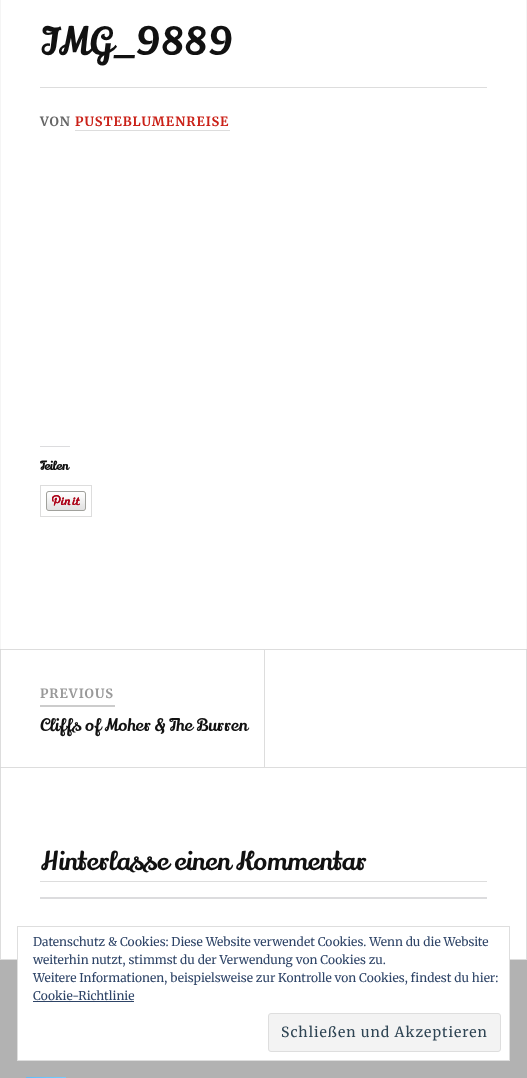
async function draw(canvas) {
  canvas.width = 527
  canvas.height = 1078
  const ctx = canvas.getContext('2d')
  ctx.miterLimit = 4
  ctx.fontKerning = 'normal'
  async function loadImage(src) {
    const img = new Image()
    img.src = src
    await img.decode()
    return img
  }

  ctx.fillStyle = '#b2b2b2'
  ctx.fillRect(0, 0, 527, 1078)
  ctx.fillStyle = '#fff'
  ctx.fillRect(1, 0, 525, 649)
  ctx.fillStyle = '#f5f5f5'
  ctx.beginPath()
  ctx.moveTo(527, -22)
  ctx.lineTo(527, 649)
  ctx.lineTo(526, 649)
  ctx.lineTo(526, -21)
  ctx.closePath()
  ctx.fill()
  ctx.beginPath()
  ctx.moveTo(0, 649)
  ctx.lineTo(0, -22)
  ctx.lineTo(1, -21)
  ctx.lineTo(1, 649)
  ctx.closePath()
  ctx.fill()
  ctx.font = '38.25px Lily Script One'
  ctx.fillStyle = '#111'
  ctx.fillText('IMG_9889', 40, 55)
  ctx.fillStyle = '#ddd'
  ctx.fillRect(40, 87, 447, 1)
  ctx.letterSpacing = '1px'
  ctx.font = 'bold 12.75px Merriweather'
  ctx.fillStyle = '#666'
  ctx.fillText('VON', 40, 126)
  ctx.fillStyle = '#ca2017'
  ctx.fillText('PUSTEBLUMENREISE', 75, 126)
  ctx.fillStyle = '#ddd'
  ctx.fillRect(75, 130, 155, 1)
  ctx.fillStyle = '#dcdcde'
  ctx.fillRect(40, 446, 30, 1)
  ctx.letterSpacing = '0px'
  ctx.font = 'bold 12px Lily Script One'
  ctx.fillStyle = '#111'
  ctx.fillText('Teilen', 40, 470)
  ctx.strokeStyle = '#ddd'
  ctx.strokeRect(40.5, 485.5, 51, 31)
  ctx.drawImage(await loadImage('image0.png'), 46, 491, 40, 20)
  ctx.fillStyle = '#fff'
  ctx.beginPath()
  ctx.rect(0.5, 649.5, 526, 118)
  ctx.fill()
  ctx.stroke()
  ctx.fillStyle = '#ccc'
  ctx.fillRect(40, 705, 75, 2)
  ctx.letterSpacing = '1px'
  ctx.font = 'bold 12.75px Merriweather'
  ctx.fillStyle = '#999'
  ctx.fillText('PREVIOUS', 40, 698)
  ctx.letterSpacing = '0px'
  ctx.font = '17px Lily Script One'
  ctx.fillStyle = '#111'
  ctx.fillText('Cliffs of Moher & The Burren', 40, 731)
  ctx.fillStyle = '#ddd'
  ctx.fillRect(264, 650, 1, 117)
  ctx.fillStyle = '#fff'
  ctx.fillRect(1, 768, 525, 191)
  ctx.fillStyle = '#ddd'
  ctx.fillRect(526, 768, 1, 192)
  ctx.fillRect(0, 959, 527, 1)
  ctx.fillRect(0, 768, 1, 192)
  ctx.fillRect(40, 881, 447, 1)
  ctx.font = '25.5px Lily Script One'
  ctx.fillStyle = '#111'
  ctx.fillText('Hinterlasse einen Kommentar', 40, 870)
  ctx.fillStyle = '#dcdcde'
  ctx.fillRect(40, 897, 447, 2)
  ctx.drawImage(await loadImage('image1.png'), 26, 1077, 40, 1)
  ctx.fillStyle = '#fff'
  ctx.fillRect(18, 959, 491, 101)
  ctx.strokeStyle = '#dedede'
  ctx.strokeRect(17.5, 926.5, 492, 134)
  ctx.font = '12px Merriweather'
  ctx.fillStyle = '#2e4467'
  ctx.fillText('Datenschutz & Cookies: Diese Website verwendet Cookies. Wenn du die Website', 33, 946)
  ctx.fillText('weiterhin nutzt, stimmst du der Verwendung von Cookies zu.', 33, 964)
  ctx.fillText('Weitere Informationen, beispielsweise zur Kontrolle von Cookies, findest du hier:', 33, 982)
  ctx.fillText('Cookie-Richtlinie', 33, 1000)
  ctx.fillRect(33, 1001, 101, 1)
  ctx.fillStyle = '#f3f3f3'
  ctx.beginPath()
  ctx.roundRect(268.5, 1013.5, 232, 38, 2.5)
  ctx.fill()
  ctx.stroke()
  ctx.letterSpacing = '1px'
  ctx.font = '14px Merriweather'
  ctx.fillStyle = '#2e4453'
  ctx.fillText('Schließen und Akzeptieren', 281, 1037)
}

draw(document.querySelector('canvas'))
